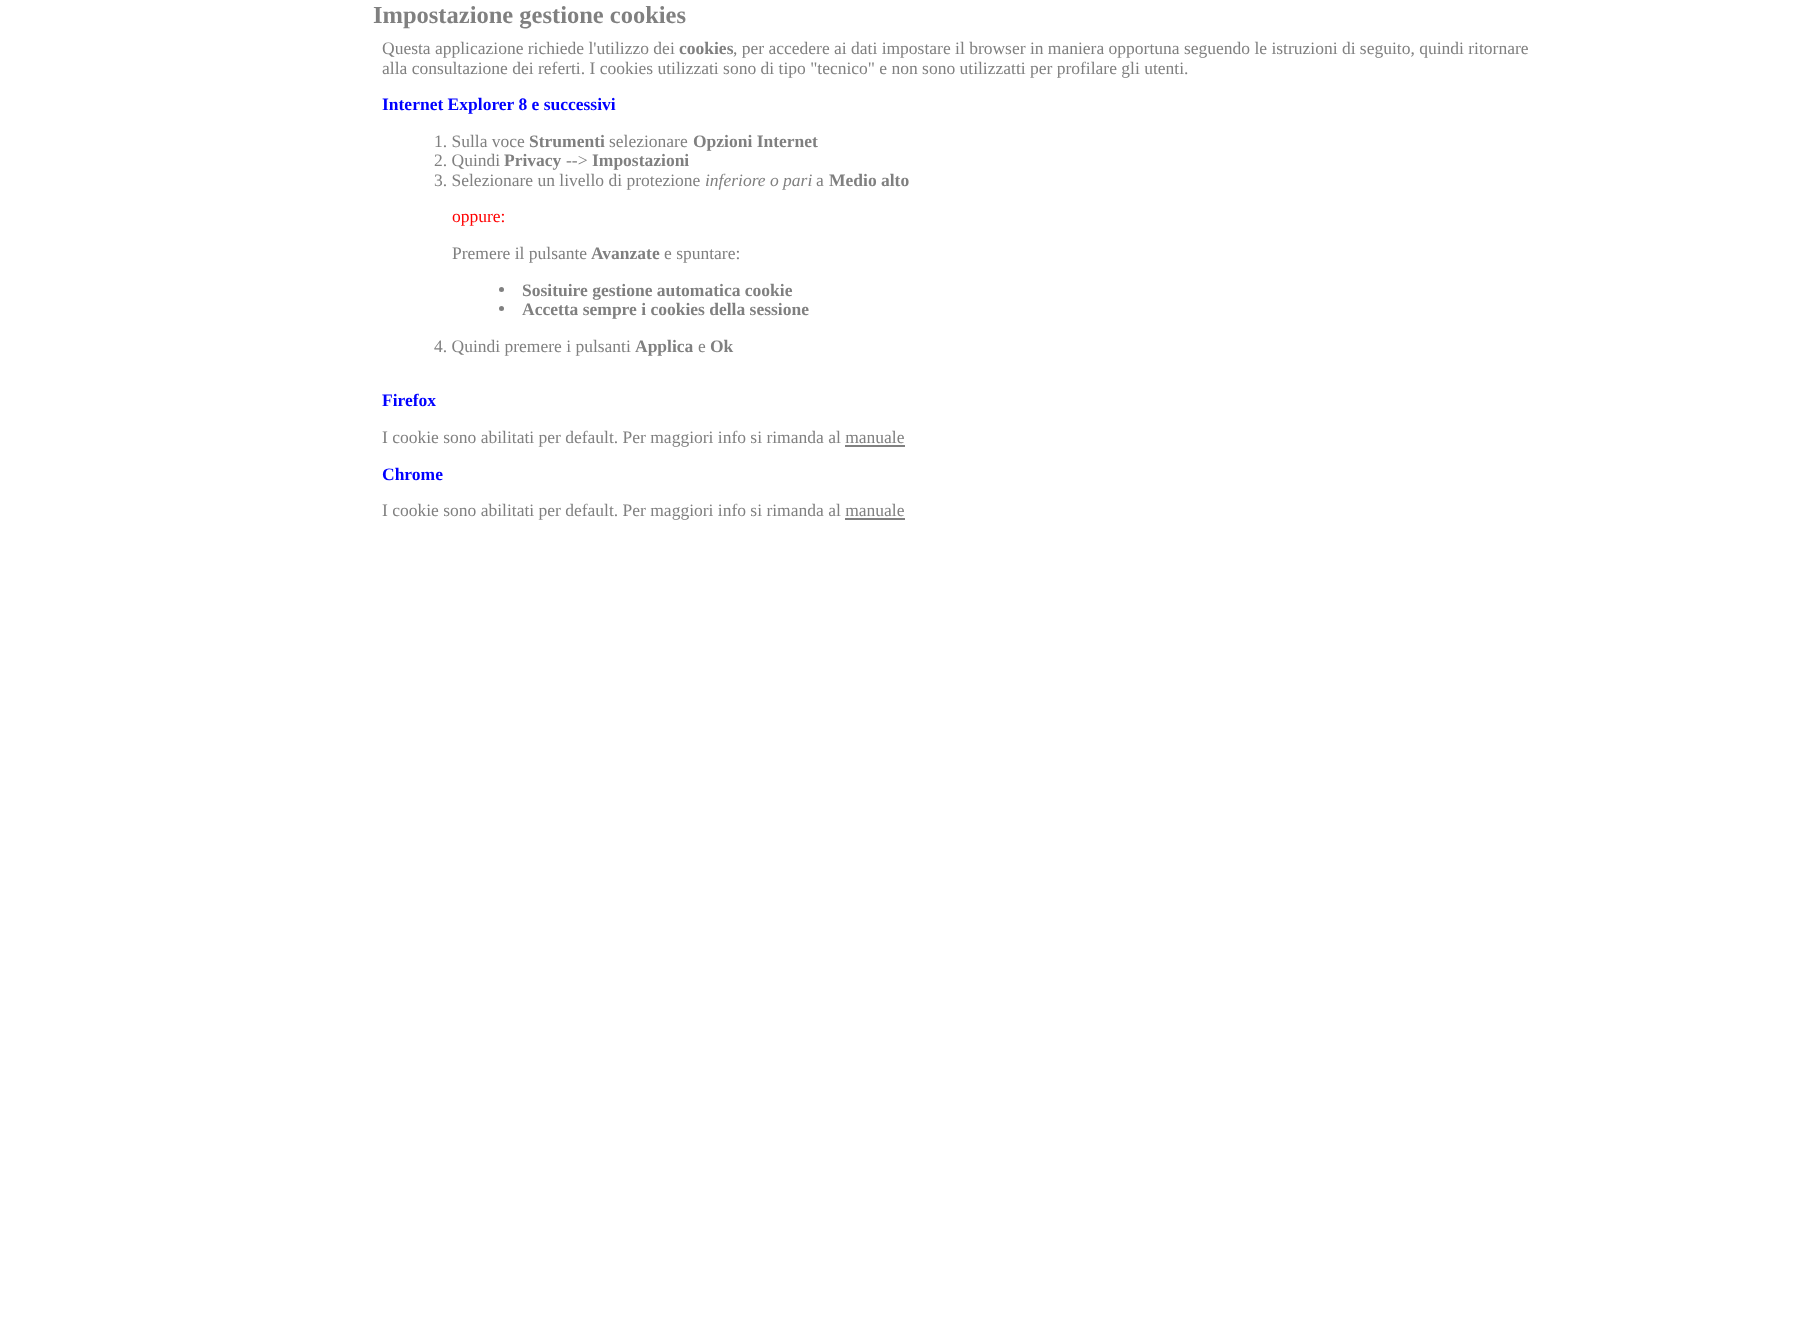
async function draw(canvas) {
  canvas.width = 1795
  canvas.height = 1337
  const ctx = canvas.getContext('2d')
  ctx.miterLimit = 4
  ctx.fontKerning = 'normal'

  ctx.fillStyle = '#fff'
  ctx.fillRect(0, 0, 1795, 1337)
  ctx.font = 'bold 24.5px Liberation Serif'
  ctx.fillStyle = '#808080'
  ctx.fillText('Impostazione gestione cookies', 373, 23)
  ctx.font = '17.5px Liberation Serif'
  ctx.fillText('Questa applicazione richiede l\'utilizzo dei', 382, 54)
  ctx.font = 'bold 17.5px Liberation Serif'
  ctx.fillText('cookies', 679, 54)
  ctx.font = '17.5px Liberation Serif'
  ctx.fillText(', per accedere ai dati impostare il browser in maniera opportuna seguendo le istruzioni di seguito, quindi ritornare', 733, 54)
  ctx.fillText('alla consultazione dei referti. I cookies utilizzati sono di tipo "tecnico" e non sono utilizzatti per profilare gli utenti.', 382, 74)
  ctx.font = 'bold 17.5px Liberation Serif'
  ctx.fillStyle = '#00f'
  ctx.fillText('Internet Explorer 8 e successivi', 382, 110)
  ctx.font = '17.5px Liberation Serif'
  ctx.fillStyle = '#808080'
  ctx.fillText('1. Sulla voce', 434, 147)
  ctx.font = 'bold 17.5px Liberation Serif'
  ctx.fillText('Strumenti', 529, 147)
  ctx.font = '17.5px Liberation Serif'
  ctx.fillText('selezionare', 609, 147)
  ctx.font = 'bold 17.5px Liberation Serif'
  ctx.fillText('Opzioni Internet', 693, 147)
  ctx.font = '17.5px Liberation Serif'
  ctx.fillText('2. Quindi', 434, 166)
  ctx.font = 'bold 17.5px Liberation Serif'
  ctx.fillText('Privacy', 504, 166)
  ctx.font = '17.5px Liberation Serif'
  ctx.fillText('-->', 566, 166)
  ctx.font = 'bold 17.5px Liberation Serif'
  ctx.fillText('Impostazioni', 592, 166)
  ctx.font = '17.5px Liberation Serif'
  ctx.fillText('3. Selezionare un livello di protezione', 434, 186)
  ctx.font = 'italic 17.5px Liberation Serif'
  ctx.fillText('inferiore o pari', 705, 186)
  ctx.font = '17.5px Liberation Serif'
  ctx.fillText('a', 816, 186)
  ctx.font = 'bold 17.5px Liberation Serif'
  ctx.fillText('Medio alto', 829, 186)
  ctx.font = '17.5px Liberation Serif'
  ctx.fillStyle = '#f00'
  ctx.fillText('oppure:', 452, 222)
  ctx.fillStyle = '#808080'
  ctx.fillText('Premere il pulsante', 452, 259)
  ctx.font = 'bold 17.5px Liberation Serif'
  ctx.fillText('Avanzate', 591, 259)
  ctx.font = '17.5px Liberation Serif'
  ctx.fillText('e spuntare:', 664, 259)
  ctx.beginPath()
  ctx.arc(501.5, 289.5, 2.5, 0, 2 * Math.PI)
  ctx.fill()
  ctx.font = 'bold 17.5px Liberation Serif'
  ctx.fillText('Sosituire gestione automatica cookie', 522, 296)
  ctx.beginPath()
  ctx.arc(501.5, 308.5, 2.5, 0, 2 * Math.PI)
  ctx.fill()
  ctx.fillText('Accetta sempre i cookies della sessione', 522, 315)
  ctx.font = '17.5px Liberation Serif'
  ctx.fillText('4. Quindi premere i pulsanti', 434, 352)
  ctx.font = 'bold 17.5px Liberation Serif'
  ctx.fillText('Applica', 635, 352)
  ctx.font = '17.5px Liberation Serif'
  ctx.fillText('e', 698, 352)
  ctx.font = 'bold 17.5px Liberation Serif'
  ctx.fillText('Ok', 710, 352)
  ctx.fillStyle = '#00f'
  ctx.fillText('Firefox', 382, 406)
  ctx.font = '17.5px Liberation Serif'
  ctx.fillStyle = '#808080'
  ctx.fillText('I cookie sono abilitati per default. Per maggiori info si rimanda al manuale', 382, 443)
  ctx.fillRect(845, 445, 60, 2)
  ctx.font = 'bold 17.5px Liberation Serif'
  ctx.fillStyle = '#00f'
  ctx.fillText('Chrome', 382, 480)
  ctx.font = '17.5px Liberation Serif'
  ctx.fillStyle = '#808080'
  ctx.fillText('I cookie sono abilitati per default. Per maggiori info si rimanda al manuale', 382, 516)
  ctx.fillRect(845, 518, 60, 2)
}

draw(document.querySelector('canvas'))
